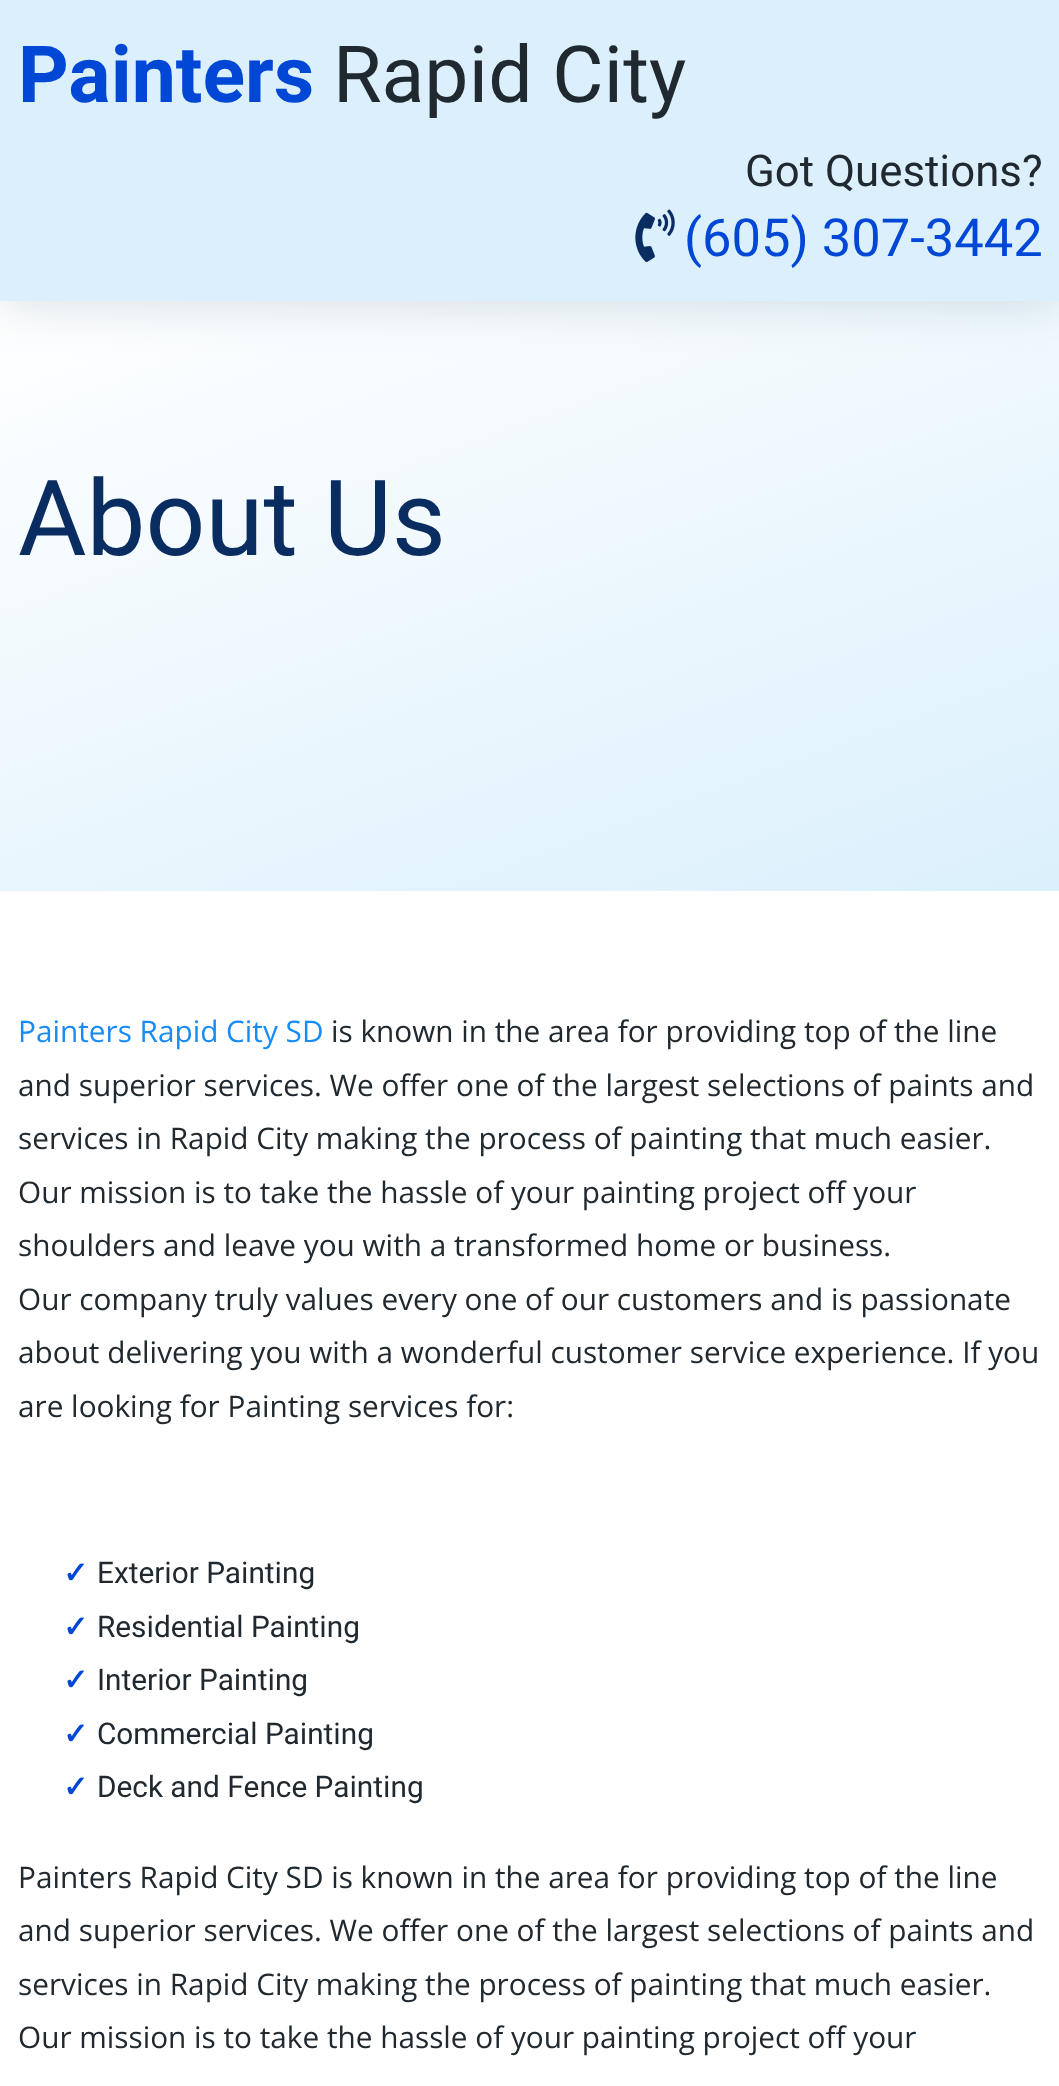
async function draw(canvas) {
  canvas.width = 1059
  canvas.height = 2086
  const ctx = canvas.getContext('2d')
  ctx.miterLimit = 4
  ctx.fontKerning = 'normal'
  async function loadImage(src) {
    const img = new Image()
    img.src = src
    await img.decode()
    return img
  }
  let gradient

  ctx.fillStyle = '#fff'
  ctx.fillRect(0, 0, 1059, 2086)
  gradient = ctx.createLinearGradient(373, 165, 687, 1027)
  gradient.addColorStop(0, '#fff')
  gradient.addColorStop(1, '#dbf0fc')
  ctx.fillStyle = gradient
  ctx.fillRect(0, 301, 1059, 590)
  ctx.fillStyle = '#0733542b'
  ctx.filter = 'blur(26px)'
  ctx.beginPath()
  ctx.rect(0, 0, 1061, 301)
  ctx.fill()
  ctx.filter = 'none'
  ctx.fillStyle = '#dbf0fc'
  ctx.fillRect(0, 0, 1059, 301)
  ctx.font = 'bold 78.75px Heebo'
  ctx.fillStyle = '#0047d6'
  ctx.fillText('Painters', 18, 102)
  ctx.font = '78.75px Heebo'
  ctx.fillStyle = '#20292f'
  ctx.fillText('Rapid City', 333, 102)
  ctx.font = '43.75px Heebo'
  ctx.fillText('Got Questions?', 745, 186)
  ctx.drawImage(await loadImage('image0.png'), 635, 209, 40, 53)
  ctx.font = '52.5px Heebo'
  ctx.fillStyle = '#0047d6'
  ctx.fillText('(605) 307-3442', 684, 256)
  ctx.font = '105px Heebo'
  ctx.fillStyle = '#0a2d61'
  ctx.fillText('About Us', 18, 555)
  ctx.font = '29.75px Open Sans'
  ctx.fillStyle = '#188bf6'
  ctx.fillText('Painters Rapid City SD', 18, 1042)
  ctx.fillStyle = '#20292f'
  ctx.fillText('is known in the area for providing top of the line', 331, 1042)
  ctx.fillText('and superior services. We offer one of the largest selections of paints and', 18, 1096)
  ctx.fillText('services in Rapid City making the process of painting that much easier.', 18, 1149)
  ctx.fillText('Our mission is to take the hassle of your painting project off your', 18, 1203)
  ctx.fillText('shoulders and leave you with a transformed home or business.', 18, 1256)
  ctx.fillText('Our company truly values every one of our customers and is passionate', 18, 1310)
  ctx.fillText('about delivering you with a wonderful customer service experience. If you', 18, 1363)
  ctx.fillText('are looking for Painting services for:', 18, 1417)
  ctx.font = 'bold 29.75px DejaVu Sans'
  ctx.fillStyle = '#0047d6'
  ctx.fillText('✓', 63, 1583)
  ctx.font = '29.75px Heebo'
  ctx.fillStyle = '#20292f'
  ctx.fillText('Exterior Painting', 97, 1583)
  ctx.font = 'bold 29.75px DejaVu Sans'
  ctx.fillStyle = '#0047d6'
  ctx.fillText('✓', 63, 1637)
  ctx.font = '29.75px Heebo'
  ctx.fillStyle = '#20292f'
  ctx.fillText('Residential Painting', 97, 1637)
  ctx.font = 'bold 29.75px DejaVu Sans'
  ctx.fillStyle = '#0047d6'
  ctx.fillText('✓', 63, 1690)
  ctx.font = '29.75px Heebo'
  ctx.fillStyle = '#20292f'
  ctx.fillText('Interior Painting', 97, 1690)
  ctx.font = 'bold 29.75px DejaVu Sans'
  ctx.fillStyle = '#0047d6'
  ctx.fillText('✓', 63, 1744)
  ctx.font = '29.75px Heebo'
  ctx.fillStyle = '#20292f'
  ctx.fillText('Commercial Painting', 97, 1744)
  ctx.font = 'bold 29.75px DejaVu Sans'
  ctx.fillStyle = '#0047d6'
  ctx.fillText('✓', 63, 1797)
  ctx.font = '29.75px Heebo'
  ctx.fillStyle = '#20292f'
  ctx.fillText('Deck and Fence Painting', 97, 1797)
  ctx.font = '29.75px Open Sans'
  ctx.fillText('Painters Rapid City SD is known in the area for providing top of the line', 18, 1888)
  ctx.fillText('and superior services. We offer one of the largest selections of paints and', 18, 1941)
  ctx.fillText('services in Rapid City making the process of painting that much easier.', 18, 1995)
  ctx.fillText('Our mission is to take the hassle of your painting project off your', 18, 2048)
}

draw(document.querySelector('canvas'))
